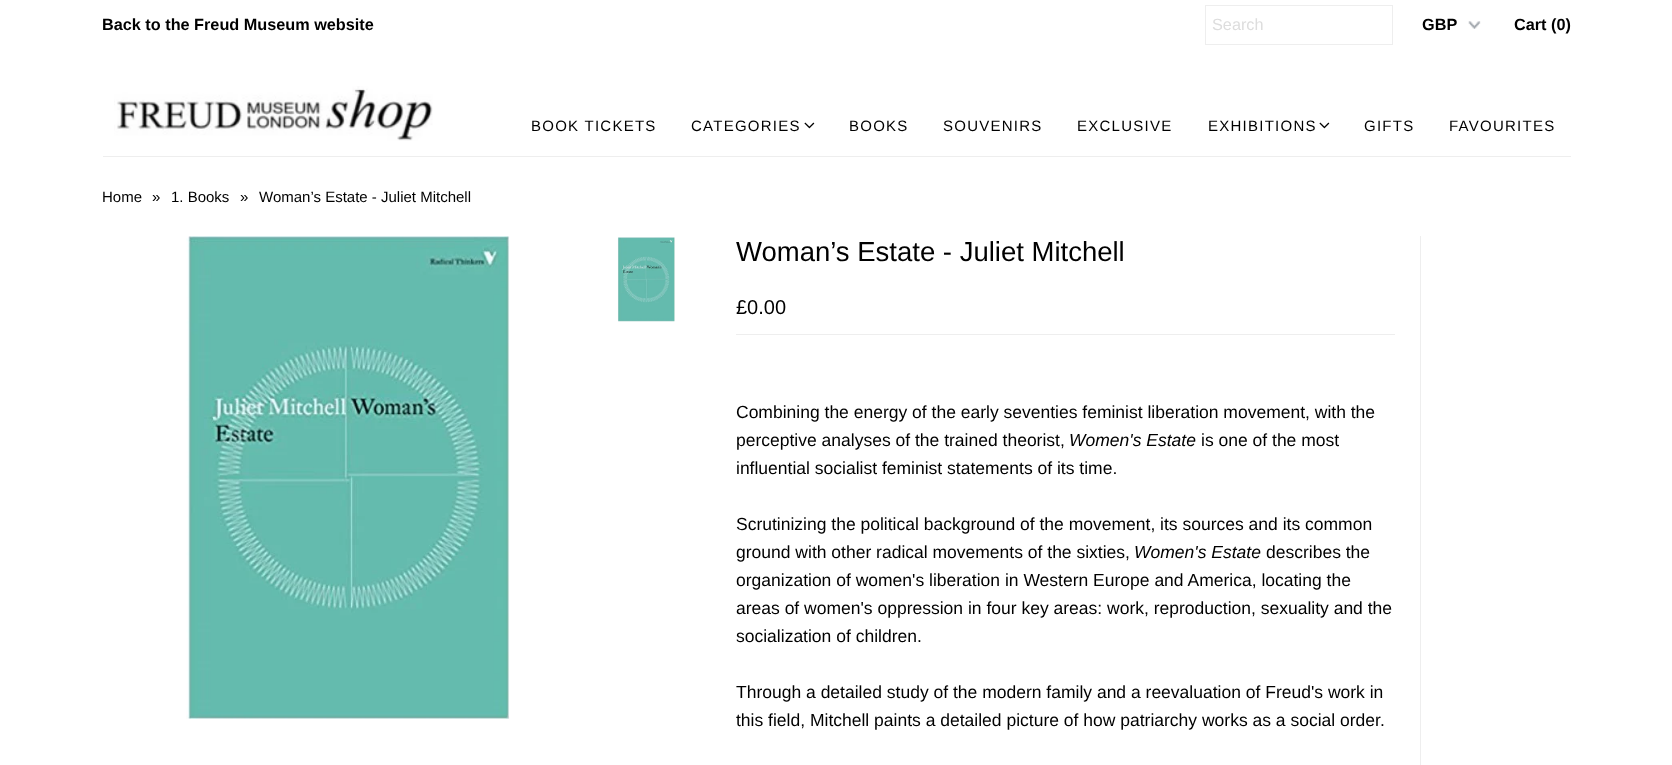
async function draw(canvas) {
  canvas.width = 1672
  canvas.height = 765
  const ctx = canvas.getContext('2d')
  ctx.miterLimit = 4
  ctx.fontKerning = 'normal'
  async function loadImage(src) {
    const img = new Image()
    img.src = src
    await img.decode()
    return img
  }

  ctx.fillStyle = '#fff'
  ctx.fillRect(0, 0, 1672, 765)
  ctx.font = 'bold 16.25px Liberation Sans'
  ctx.fillStyle = '#000'
  ctx.fillText('Back to the Freud Museum website', 102, 30)
  ctx.strokeStyle = '#eee'
  ctx.strokeRect(1205.5, 5.5, 187, 39)
  ctx.font = '16.25px Liberation Sans'
  ctx.fillStyle = '#ddd'
  ctx.fillText('Search', 1212, 30)
  ctx.drawImage(await loadImage('image0.png'), 1468, 21, 13, 8)
  ctx.font = 'bold 16.25px Liberation Sans'
  ctx.fillStyle = '#000'
  ctx.fillText('GBP', 1422, 30)
  ctx.fillText('Cart (0)', 1514, 30)
  ctx.drawImage(await loadImage('image1.png'), 114, 86, 319, 55)
  ctx.letterSpacing = '1.25px'
  ctx.font = '15px Liberation Sans'
  ctx.fillText('BOOK TICKETS', 531, 131)
  ctx.fillText('CATEGORIES', 691, 131)
  ctx.drawImage(await loadImage('image2.png'), 804, 122, 11, 7)
  ctx.fillText('BOOKS', 849, 131)
  ctx.fillText('SOUVENIRS', 943, 131)
  ctx.fillText('EXCLUSIVE', 1077, 131)
  ctx.fillText('EXHIBITIONS', 1208, 131)
  ctx.drawImage(await loadImage('image2.png'), 1319, 122, 11, 7)
  ctx.fillText('GIFTS', 1364, 131)
  ctx.fillText('FAVOURITES', 1449, 131)
  ctx.fillStyle = '#eee'
  ctx.fillRect(103, 156, 1468, 1)
  ctx.letterSpacing = '0px'
  ctx.fillStyle = '#000'
  ctx.fillText('Home', 102, 202)
  ctx.fillText('»', 152, 202)
  ctx.fillText('1. Books', 171, 202)
  ctx.fillText('»', 240, 202)
  ctx.fillText('Woman’s Estate - Juliet Mitchell', 259, 202)
  ctx.drawImage(await loadImage('image3.png'), 186, 236, 324, 483)
  ctx.drawImage(await loadImage('image4.png'), 617, 237, 58, 85)
  ctx.fillStyle = '#eee'
  ctx.fillRect(1420, 236, 1, 529)
  ctx.font = '27.5px Liberation Sans'
  ctx.fillStyle = '#000'
  ctx.fillText('Woman’s Estate - Juliet Mitchell', 736, 261)
  ctx.font = '20px Liberation Sans'
  ctx.fillText('£0.00', 736, 314)
  ctx.fillStyle = '#eee'
  ctx.fillRect(736, 334, 659, 1)
  ctx.font = '17.5px Liberation Sans'
  ctx.fillStyle = '#000'
  ctx.fillText('Combining the energy of the early seventies feminist liberation movement, with the', 736, 418)
  ctx.fillText('perceptive analyses of the trained theorist,', 736, 446)
  ctx.font = 'italic 17.5px Liberation Sans'
  ctx.fillText('Women\'s Estate', 1069, 446)
  ctx.font = '17.5px Liberation Sans'
  ctx.fillText('is one of the most', 1201, 446)
  ctx.fillText('influential socialist feminist statements of its time.', 736, 474)
  ctx.fillText('Scrutinizing the political background of the movement, its sources and its common', 736, 530)
  ctx.fillText('ground with other radical movements of the sixties,', 736, 558)
  ctx.font = 'italic 17.5px Liberation Sans'
  ctx.fillText('Women\'s Estate', 1134, 558)
  ctx.font = '17.5px Liberation Sans'
  ctx.fillText('describes the', 1266, 558)
  ctx.fillText('organization of women\'s liberation in Western Europe and America, locating the', 736, 586)
  ctx.fillText('areas of women\'s oppression in four key areas: work, reproduction, sexuality and the', 736, 614)
  ctx.fillText('socialization of children.', 736, 642)
  ctx.fillText('Through a detailed study of the modern family and a reevaluation of Freud\'s work in', 736, 698)
  ctx.fillText('this field, Mitchell paints a detailed picture of how patriarchy works as a social order.', 736, 726)
}

draw(document.querySelector('canvas'))
